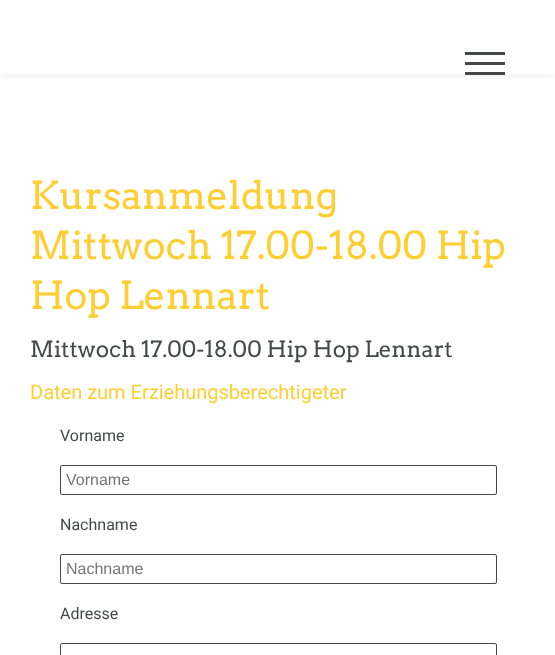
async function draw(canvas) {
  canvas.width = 555
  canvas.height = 655
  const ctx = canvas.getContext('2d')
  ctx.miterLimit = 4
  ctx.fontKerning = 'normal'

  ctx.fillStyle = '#fff'
  ctx.fillRect(0, 0, 555, 655)
  ctx.save()
  ctx.beginPath()
  ctx.rect(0, 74, 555, 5)
  ctx.clip()
  ctx.fillStyle = '#32323214'
  ctx.filter = 'blur(4px)'
  ctx.beginPath()
  ctx.rect(0, 2, 555, 74)
  ctx.fill()
  ctx.filter = 'none'
  ctx.restore()
  ctx.fillStyle = '#464848'
  ctx.fillRect(465, 62, 40, 3)
  ctx.fillRect(465, 52, 40, 3)
  ctx.fillRect(465, 72, 40, 3)
  ctx.font = '38.4px Arvo'
  ctx.fillStyle = '#fece32'
  ctx.fillText('Kursanmeldung', 30, 209)
  ctx.fillText('Mittwoch 17.00-18.00 Hip', 30, 259)
  ctx.fillText('Hop Lennart', 30, 309)
  ctx.font = '22.4px Arvo'
  ctx.fillStyle = '#464848'
  ctx.fillText('Mittwoch 17.00-18.00 Hip Hop Lennart', 30, 357)
  ctx.font = '20px Roboto'
  ctx.fillStyle = '#fece32'
  ctx.fillText('Daten zum Erziehungsberechtigeter', 30, 399)
  ctx.font = '16px Roboto'
  ctx.fillStyle = '#464848'
  ctx.fillText('Vorname', 60, 441)
  ctx.beginPath()
  ctx.roundRect(60.5, 465.5, 436, 29, 1.5)
  ctx.strokeStyle = '#464848'
  ctx.stroke()
  ctx.font = '16px Liberation Sans'
  ctx.fillStyle = '#757575'
  ctx.fillText('Vorname', 66, 485)
  ctx.font = '16px Roboto'
  ctx.fillStyle = '#464848'
  ctx.fillText('Nachname', 60, 530)
  ctx.beginPath()
  ctx.roundRect(60.5, 554.5, 436, 29, 1.5)
  ctx.stroke()
  ctx.font = '16px Liberation Sans'
  ctx.fillStyle = '#757575'
  ctx.fillText('Nachname', 66, 574)
  ctx.font = '16px Roboto'
  ctx.fillStyle = '#464848'
  ctx.fillText('Adresse', 60, 619)
  ctx.beginPath()
  ctx.roundRect(60.5, 643.5, 436, 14, 1.5)
  ctx.stroke()
}

draw(document.querySelector('canvas'))
